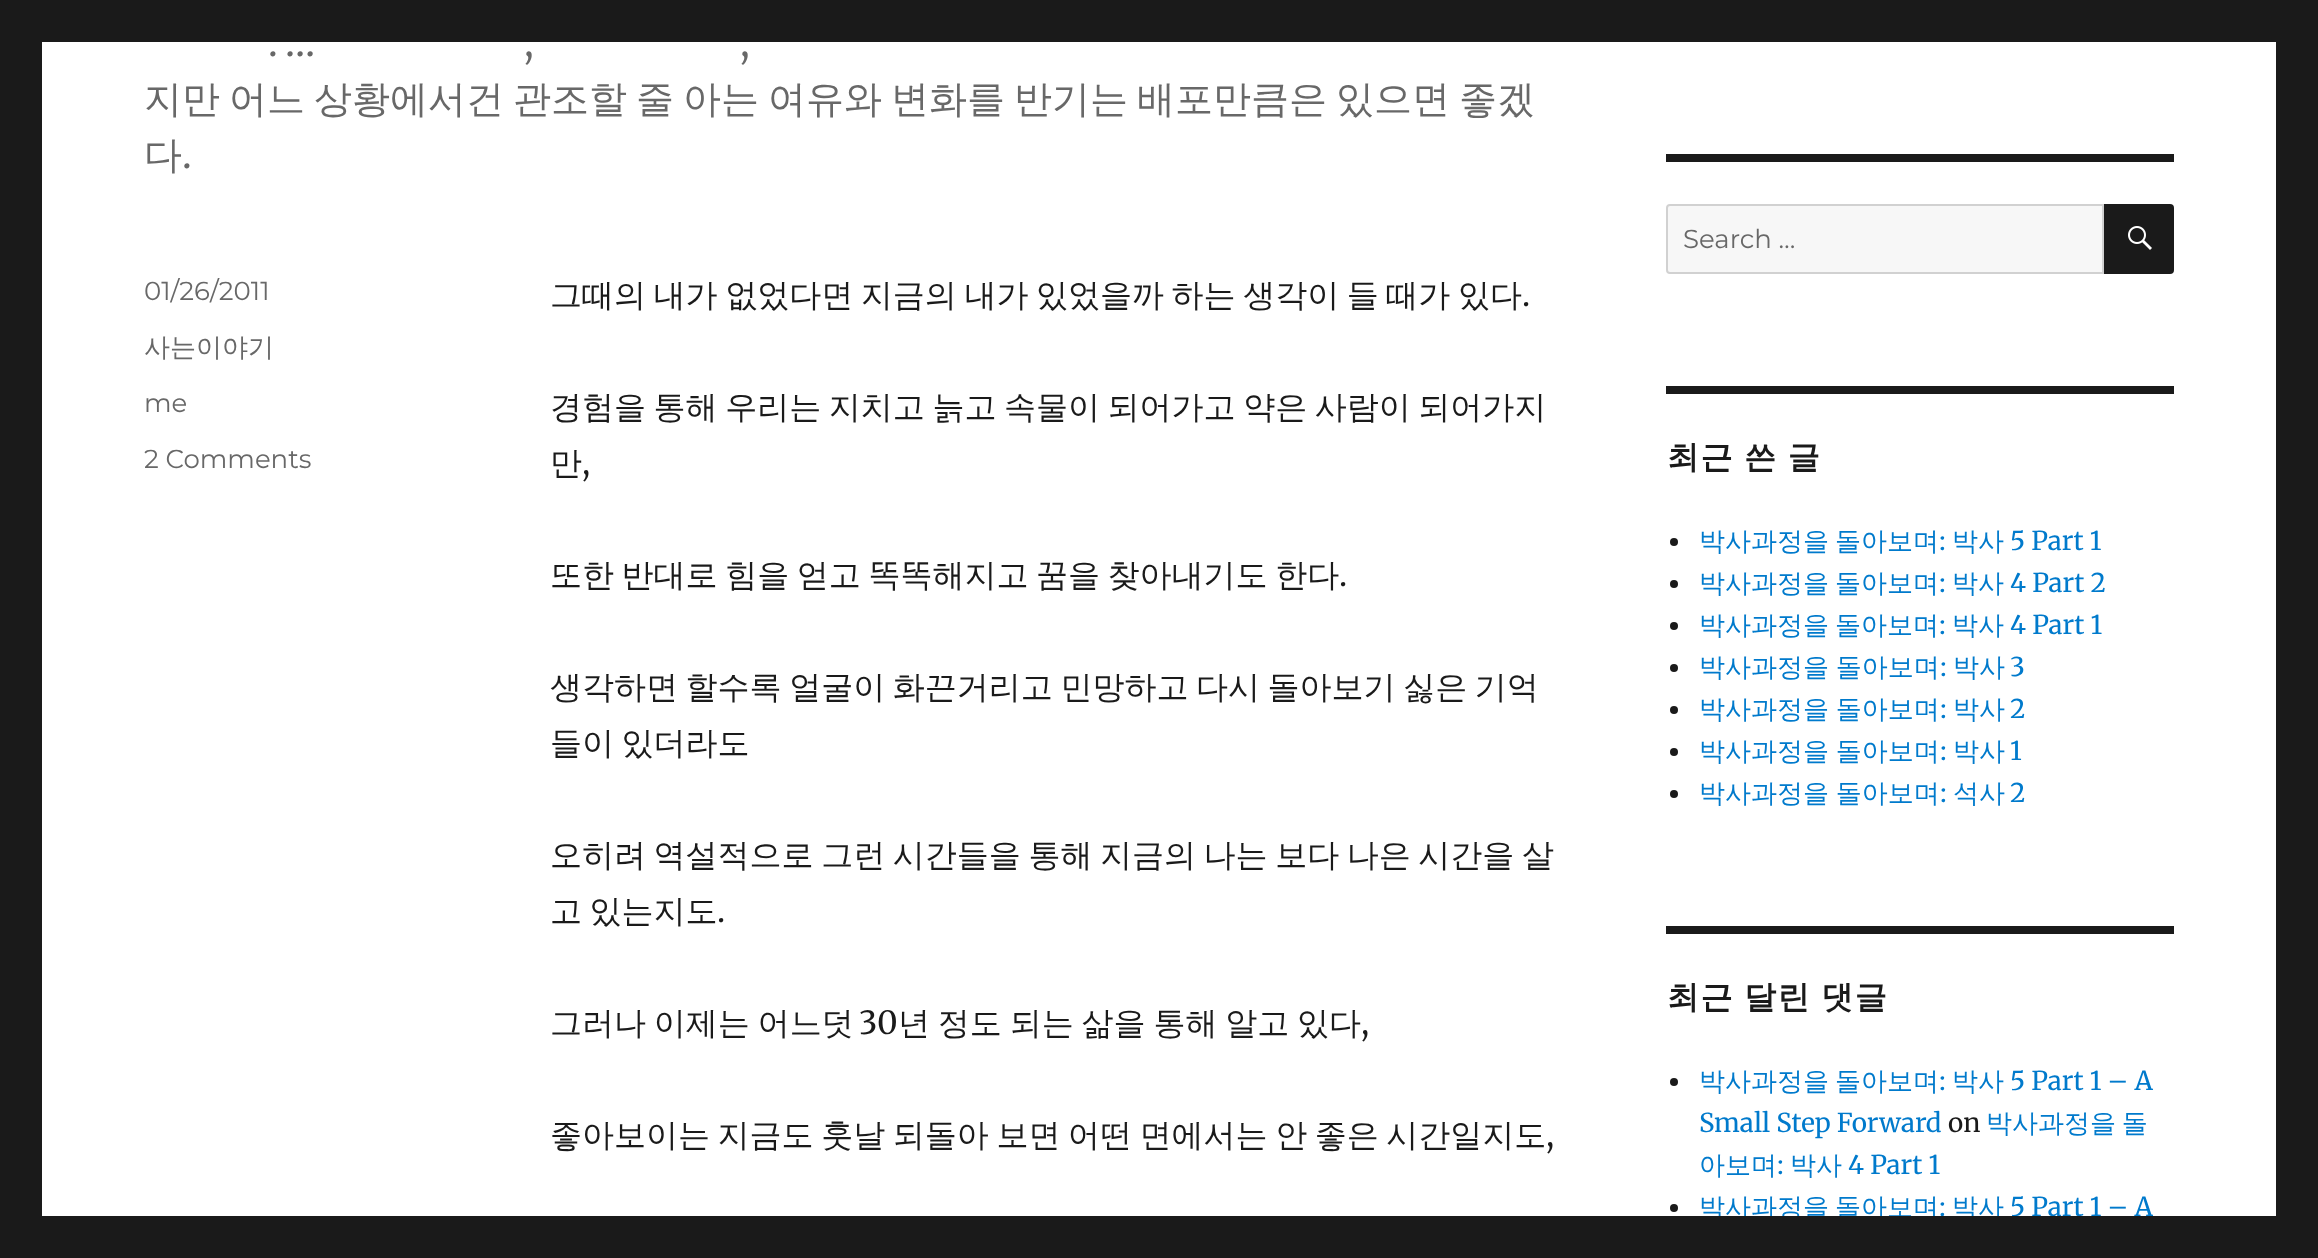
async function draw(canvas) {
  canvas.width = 2318
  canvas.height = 1258
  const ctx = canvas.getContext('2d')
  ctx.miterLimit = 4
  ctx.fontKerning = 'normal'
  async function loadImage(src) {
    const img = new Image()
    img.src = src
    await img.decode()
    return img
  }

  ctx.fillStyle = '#1a1a1a'
  ctx.fillRect(0, 0, 2318, 1258)
  ctx.fillStyle = '#fff'
  ctx.fillRect(42, 42, 2234, 1174)
  ctx.font = '38px Merriweather'
  ctx.fillStyle = '#686868'
  ctx.fillText('.', 268, 56)
  ctx.fillText('…', 285, 56)
  ctx.fillText(',', 524, 56)
  ctx.fillText(',', 740, 56)
  ctx.font = '500 38px WenQuanYi Zen Hei'
  ctx.fillText('지만', 144, 112)
  ctx.wordSpacing = '-2.4px'
  ctx.fillText('어느 상황에서건 관조할 줄 아는 여유와 변화를 반기는 배포만큼은 있으면 좋겠', 229, 112)
  ctx.wordSpacing = '0px'
  ctx.fillText('다', 144, 168)
  ctx.font = '38px Merriweather'
  ctx.fillText('.', 182, 168)
  ctx.font = '26px Montserrat'
  ctx.fillText('01/26/2011', 144, 300)
  ctx.font = '500 26px WenQuanYi Zen Hei'
  ctx.fillText('사는이야기', 144, 356)
  ctx.font = '26px Montserrat'
  ctx.fillText('me', 144, 412)
  ctx.fillText('2 Comments', 144, 468)
  ctx.wordSpacing = '-2px'
  ctx.font = '500 32px WenQuanYi Zen Hei'
  ctx.fillStyle = '#1a1a1a'
  ctx.fillText('그때의 내가 없었다면 지금의 내가 있었을까 하는 생각이 들 때가 있다', 550, 306)
  ctx.wordSpacing = '0px'
  ctx.font = '32px Merriweather'
  ctx.fillText('.', 1522, 306)
  ctx.wordSpacing = '-2px'
  ctx.font = '500 32px WenQuanYi Zen Hei'
  ctx.fillText('경험을 통해 우리는 지치고 늙고 속물이 되어가고 약은 사람이 되어가지', 550, 418)
  ctx.wordSpacing = '0px'
  ctx.fillText('만', 550, 474)
  ctx.font = '32px Merriweather'
  ctx.fillText(',', 582, 474)
  ctx.wordSpacing = '-2px'
  ctx.font = '500 32px WenQuanYi Zen Hei'
  ctx.fillText('또한 반대로 힘을 얻고 똑똑해지고 꿈을 찾아내기도 한다', 550, 586)
  ctx.wordSpacing = '0px'
  ctx.font = '32px Merriweather'
  ctx.fillText('.', 1339, 586)
  ctx.wordSpacing = '-2px'
  ctx.font = '500 32px WenQuanYi Zen Hei'
  ctx.fillText('생각하면 할수록 얼굴이 화끈거리고 민망하고 다시 돌아보기 싫은 기억', 550, 698)
  ctx.fillText('들이 있더라도', 550, 754)
  ctx.fillText('오히려 역설적으로 그런 시간들을 통해 지금의 나는 보다 나은 시간을 살', 550, 866)
  ctx.fillText('고 있는지도', 550, 922)
  ctx.wordSpacing = '0px'
  ctx.font = '32px Merriweather'
  ctx.fillText('.', 717, 922)
  ctx.wordSpacing = '-1.75px'
  ctx.font = '500 32px WenQuanYi Zen Hei'
  ctx.fillText('그러나 이제는 어느덧', 550, 1034)
  ctx.wordSpacing = '0px'
  ctx.font = '32px Merriweather'
  ctx.fillText('30', 859, 1034)
  ctx.wordSpacing = '-1.75px'
  ctx.font = '500 32px WenQuanYi Zen Hei'
  ctx.fillText('년 정도 되는 삶을 통해 알고 있다', 898, 1034)
  ctx.wordSpacing = '0px'
  ctx.font = '32px Merriweather'
  ctx.fillText(',', 1361, 1034)
  ctx.wordSpacing = '-2px'
  ctx.font = '500 32px WenQuanYi Zen Hei'
  ctx.fillText('좋아보이는 지금도 훗날 되돌아 보면 어떤 면에서는 안 좋은 시간일지도', 550, 1146)
  ctx.wordSpacing = '0px'
  ctx.font = '32px Merriweather'
  ctx.fillText(',', 1546, 1146)
  ctx.fillRect(1666, 154, 508, 8)
  ctx.fillStyle = '#f7f7f7'
  ctx.beginPath()
  ctx.roundRect(1667, 205, 436, 68, [3, 0, 0, 3])
  ctx.fill()
  ctx.strokeStyle = '#d1d1d1'
  ctx.lineWidth = 2
  ctx.stroke()
  ctx.font = '26px Montserrat'
  ctx.fillStyle = '#686868'
  ctx.fillText('Search …', 1683, 248)
  ctx.fillStyle = '#1a1a1a'
  ctx.beginPath()
  ctx.roundRect(2104, 204, 70, 70, [0, 4, 4, 0])
  ctx.fill()
  ctx.drawImage(await loadImage('image0.png'), 2128, 226, 24, 24)
  ctx.fillRect(1666, 386, 508, 8)
  ctx.letterSpacing = '1.5px'
  ctx.wordSpacing = '-1px'
  ctx.font = 'bold 32px WenQuanYi Zen Hei'
  ctx.fillText('최근 쓴 글', 1667, 468)
  ctx.beginPath()
  ctx.arc(1674, 542, 4, 0, 2 * Math.PI)
  ctx.fill()
  ctx.letterSpacing = '0px'
  ctx.wordSpacing = '0px'
  ctx.font = '500 26px WenQuanYi Zen Hei'
  ctx.fillStyle = '#007acc'
  ctx.fillText('박사과정을', 1699, 550)
  ctx.fillText('돌아보며', 1835, 550)
  ctx.font = '26px Merriweather'
  ctx.fillText(':', 1939, 550)
  ctx.font = '500 26px WenQuanYi Zen Hei'
  ctx.fillText('박사', 1952, 550)
  ctx.font = '26px Merriweather'
  ctx.fillText('5 Part 1', 2010, 550)
  ctx.fillStyle = '#1a1a1a'
  ctx.beginPath()
  ctx.arc(1674, 584, 4, 0, 2 * Math.PI)
  ctx.fill()
  ctx.font = '500 26px WenQuanYi Zen Hei'
  ctx.fillStyle = '#007acc'
  ctx.fillText('박사과정을', 1699, 592)
  ctx.fillText('돌아보며', 1835, 592)
  ctx.font = '26px Merriweather'
  ctx.fillText(':', 1939, 592)
  ctx.font = '500 26px WenQuanYi Zen Hei'
  ctx.fillText('박사', 1952, 592)
  ctx.font = '26px Merriweather'
  ctx.fillText('4 Part 2', 2010, 592)
  ctx.fillStyle = '#1a1a1a'
  ctx.beginPath()
  ctx.arc(1674, 626, 4, 0, 2 * Math.PI)
  ctx.fill()
  ctx.font = '500 26px WenQuanYi Zen Hei'
  ctx.fillStyle = '#007acc'
  ctx.fillText('박사과정을', 1699, 634)
  ctx.fillText('돌아보며', 1835, 634)
  ctx.font = '26px Merriweather'
  ctx.fillText(':', 1939, 634)
  ctx.font = '500 26px WenQuanYi Zen Hei'
  ctx.fillText('박사', 1952, 634)
  ctx.font = '26px Merriweather'
  ctx.fillText('4 Part 1', 2010, 634)
  ctx.fillStyle = '#1a1a1a'
  ctx.beginPath()
  ctx.arc(1674, 668, 4, 0, 2 * Math.PI)
  ctx.fill()
  ctx.wordSpacing = '-1px'
  ctx.font = '500 26px WenQuanYi Zen Hei'
  ctx.fillStyle = '#007acc'
  ctx.fillText('박사과정을 돌아보며', 1699, 676)
  ctx.wordSpacing = '0px'
  ctx.font = '26px Merriweather'
  ctx.fillText(':', 1940, 676)
  ctx.font = '500 26px WenQuanYi Zen Hei'
  ctx.fillText('박사', 1953, 676)
  ctx.font = '26px Merriweather'
  ctx.fillText('3', 2010, 676)
  ctx.fillStyle = '#1a1a1a'
  ctx.beginPath()
  ctx.arc(1674, 710, 4, 0, 2 * Math.PI)
  ctx.fill()
  ctx.wordSpacing = '-1px'
  ctx.font = '500 26px WenQuanYi Zen Hei'
  ctx.fillStyle = '#007acc'
  ctx.fillText('박사과정을 돌아보며', 1699, 718)
  ctx.wordSpacing = '0px'
  ctx.font = '26px Merriweather'
  ctx.fillText(':', 1940, 718)
  ctx.font = '500 26px WenQuanYi Zen Hei'
  ctx.fillText('박사', 1953, 718)
  ctx.font = '26px Merriweather'
  ctx.fillText('2', 2010, 718)
  ctx.fillStyle = '#1a1a1a'
  ctx.beginPath()
  ctx.arc(1674, 752, 4, 0, 2 * Math.PI)
  ctx.fill()
  ctx.wordSpacing = '-1px'
  ctx.font = '500 26px WenQuanYi Zen Hei'
  ctx.fillStyle = '#007acc'
  ctx.fillText('박사과정을 돌아보며', 1699, 760)
  ctx.wordSpacing = '0px'
  ctx.font = '26px Merriweather'
  ctx.fillText(':', 1940, 760)
  ctx.font = '500 26px WenQuanYi Zen Hei'
  ctx.fillText('박사', 1953, 760)
  ctx.font = '26px Merriweather'
  ctx.fillText('1', 2010, 760)
  ctx.fillStyle = '#1a1a1a'
  ctx.beginPath()
  ctx.arc(1674, 794, 4, 0, 2 * Math.PI)
  ctx.fill()
  ctx.wordSpacing = '-1px'
  ctx.font = '500 26px WenQuanYi Zen Hei'
  ctx.fillStyle = '#007acc'
  ctx.fillText('박사과정을 돌아보며', 1699, 802)
  ctx.wordSpacing = '0px'
  ctx.font = '26px Merriweather'
  ctx.fillText(':', 1940, 802)
  ctx.font = '500 26px WenQuanYi Zen Hei'
  ctx.fillText('석사', 1953, 802)
  ctx.font = '26px Merriweather'
  ctx.fillText('2', 2010, 802)
  ctx.fillStyle = '#1a1a1a'
  ctx.fillRect(1666, 926, 508, 8)
  ctx.letterSpacing = '1.5px'
  ctx.wordSpacing = '-1px'
  ctx.font = 'bold 32px WenQuanYi Zen Hei'
  ctx.fillText('최근 달린 댓글', 1667, 1008)
  ctx.beginPath()
  ctx.arc(1674, 1082, 4, 0, 2 * Math.PI)
  ctx.fill()
  ctx.letterSpacing = '0px'
  ctx.wordSpacing = '0px'
  ctx.font = '500 26px WenQuanYi Zen Hei'
  ctx.fillStyle = '#007acc'
  ctx.fillText('박사과정을', 1699, 1090)
  ctx.fillText('돌아보며', 1835, 1090)
  ctx.font = '26px Merriweather'
  ctx.fillText(':', 1939, 1090)
  ctx.font = '500 26px WenQuanYi Zen Hei'
  ctx.fillText('박사', 1952, 1090)
  ctx.font = '26px Merriweather'
  ctx.fillText('5 Part 1 – A', 2010, 1090)
  ctx.fillText('Small Step Forward', 1699, 1132)
  ctx.fillStyle = '#1a1a1a'
  ctx.fillText('on', 1948, 1132)
  ctx.wordSpacing = '-2px'
  ctx.font = '500 26px WenQuanYi Zen Hei'
  ctx.fillStyle = '#007acc'
  ctx.fillText('박사과정을 돌', 1986, 1132)
  ctx.wordSpacing = '0px'
  ctx.fillText('아보며', 1699, 1174)
  ctx.font = '26px Merriweather'
  ctx.fillText(':', 1777, 1174)
  ctx.font = '500 26px WenQuanYi Zen Hei'
  ctx.fillText('박사', 1790, 1174)
  ctx.font = '26px Merriweather'
  ctx.fillText('4 Part 1', 1848, 1174)
  ctx.fillStyle = '#1a1a1a'
  ctx.beginPath()
  ctx.arc(1674, 1208, 4, 0, 2 * Math.PI)
  ctx.fill()
  ctx.font = '500 26px WenQuanYi Zen Hei'
  ctx.fillStyle = '#007acc'
  ctx.fillText('박사과정을', 1699, 1216)
  ctx.fillText('돌아보며', 1835, 1216)
  ctx.font = '26px Merriweather'
  ctx.fillText(':', 1939, 1216)
  ctx.font = '500 26px WenQuanYi Zen Hei'
  ctx.fillText('박사', 1952, 1216)
  ctx.font = '26px Merriweather'
  ctx.fillText('5 Part 1 – A', 2010, 1216)
  ctx.fillStyle = '#1a1a1a'
  ctx.fillRect(1718, 1216, 363, 4)
}

draw(document.querySelector('canvas'))
